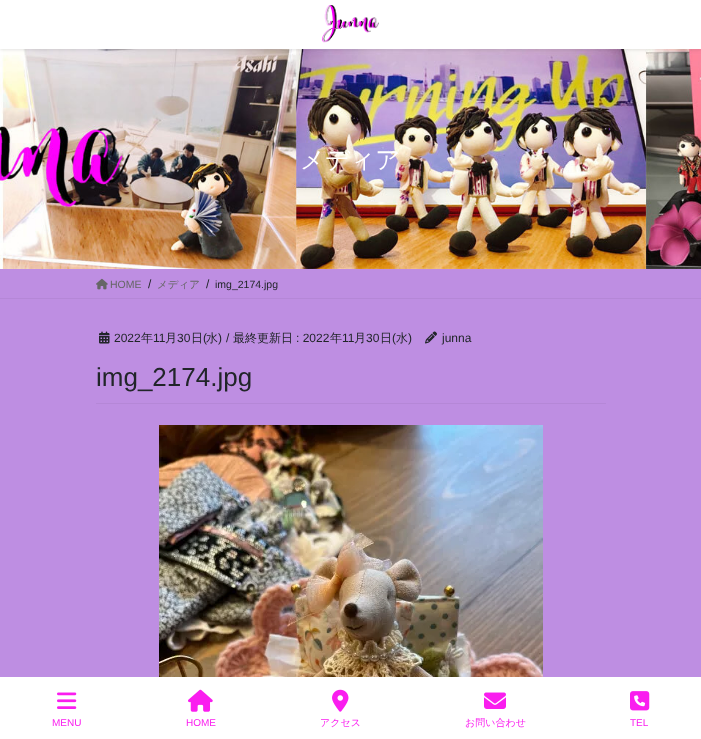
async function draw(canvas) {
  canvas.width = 701
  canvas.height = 739
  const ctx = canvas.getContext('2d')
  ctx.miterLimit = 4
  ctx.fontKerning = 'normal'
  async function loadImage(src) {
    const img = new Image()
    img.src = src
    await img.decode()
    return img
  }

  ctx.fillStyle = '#be8ee2'
  ctx.fillRect(0, 0, 701, 739)
  ctx.drawImage(await loadImage('image1.png'), 0, 49, 701, 220)
  ctx.fillStyle = '#0000001a'
  ctx.filter = 'blur(1.5px)'
  ctx.beginPath()
  ctx.rect(0, 1, 701, 49)
  ctx.fill()
  ctx.filter = 'none'
  ctx.fillStyle = '#fff'
  ctx.fillRect(0, 0, 701, 49)
  ctx.drawImage(await loadImage('image0.png'), 322, 5, 57, 38)
  ctx.font = '500 24.5px WenQuanYi Zen Hei'
  ctx.fillText('メディア', 300, 168)
  ctx.fillStyle = '#b587d7'
  ctx.fillRect(0, 298, 701, 1)
  ctx.drawImage(await loadImage('image2.png'), 96, 278, 12, 12)
  ctx.font = '10.5px Liberation Sans'
  ctx.fillStyle = '#666'
  ctx.fillText('HOME', 110, 288)
  ctx.font = '12px Liberation Sans'
  ctx.fillStyle = '#212529'
  ctx.fillText('/', 148, 288)
  ctx.font = '500 10.5px WenQuanYi Zen Hei'
  ctx.fillStyle = '#666'
  ctx.fillText('メディア', 157, 288)
  ctx.font = '12px Liberation Sans'
  ctx.fillStyle = '#212529'
  ctx.fillText('/', 206, 288)
  ctx.font = '10.5px Liberation Sans'
  ctx.fillText('img_2174.jpg', 215, 288)
  ctx.fillStyle = '#b587d7'
  ctx.fillRect(96, 403, 510, 1)
  ctx.drawImage(await loadImage('image3.png'), 99, 331, 11, 13)
  ctx.font = '12px Liberation Sans'
  ctx.fillStyle = '#212529'
  ctx.fillText('2022', 114, 342)
  ctx.font = '500 12px WenQuanYi Zen Hei'
  ctx.fillText('年', 141, 342)
  ctx.font = '12px Liberation Sans'
  ctx.fillText('11', 153, 342)
  ctx.font = '500 12px WenQuanYi Zen Hei'
  ctx.fillText('月', 165, 342)
  ctx.font = '12px Liberation Sans'
  ctx.fillText('30', 177, 342)
  ctx.font = '500 12px WenQuanYi Zen Hei'
  ctx.fillText('日', 191, 342)
  ctx.font = '12px Liberation Sans'
  ctx.fillText('(', 203, 342)
  ctx.font = '500 12px WenQuanYi Zen Hei'
  ctx.fillText('水', 206, 342)
  ctx.font = '12px Liberation Sans'
  ctx.fillText(')', 218, 342)
  ctx.fillText('/', 226, 342)
  ctx.font = '500 12px WenQuanYi Zen Hei'
  ctx.fillText('最終更新日', 233, 342)
  ctx.font = '12px Liberation Sans'
  ctx.fillText(': 2022', 296, 342)
  ctx.font = '500 12px WenQuanYi Zen Hei'
  ctx.fillText('年', 330, 342)
  ctx.font = '12px Liberation Sans'
  ctx.fillText('11', 342, 342)
  ctx.font = '500 12px WenQuanYi Zen Hei'
  ctx.fillText('月', 354, 342)
  ctx.font = '12px Liberation Sans'
  ctx.fillText('30', 366, 342)
  ctx.font = '500 12px WenQuanYi Zen Hei'
  ctx.fillText('日', 380, 342)
  ctx.font = '12px Liberation Sans'
  ctx.fillText('(', 392, 342)
  ctx.font = '500 12px WenQuanYi Zen Hei'
  ctx.fillText('水', 396, 342)
  ctx.font = '12px Liberation Sans'
  ctx.fillText(')', 408, 342)
  ctx.drawImage(await loadImage('image4.png'), 425, 331, 12, 13)
  ctx.fillText('junna', 442, 342)
  ctx.font = '26px Liberation Sans'
  ctx.fillText('img_2174.jpg', 96, 386)
  ctx.drawImage(await loadImage('image5.png'), 159, 425, 384, 252)
  ctx.fillStyle = '#fff'
  ctx.fillRect(0, 677, 701, 62)
  ctx.drawImage(await loadImage('image6.png'), 57, 692, 20, 17)
  ctx.font = '10px Liberation Sans'
  ctx.fillStyle = '#fa1def'
  ctx.fillText('MENU', 52, 726)
  ctx.drawImage(await loadImage('image7.png'), 188, 689, 25, 23)
  ctx.fillText('HOME', 186, 726)
  ctx.drawImage(await loadImage('image8.png'), 332, 689, 17, 23)
  ctx.font = '500 10px WenQuanYi Zen Hei'
  ctx.fillText('アクセス', 320, 726)
  ctx.drawImage(await loadImage('image9.png'), 484, 692, 22, 17)
  ctx.fillText('お問い合わせ', 465, 726)
  ctx.drawImage(await loadImage('image10.png'), 630, 691, 20, 20)
  ctx.font = '10px Liberation Sans'
  ctx.fillText('TEL', 630, 726)
}

draw(document.querySelector('canvas'))
